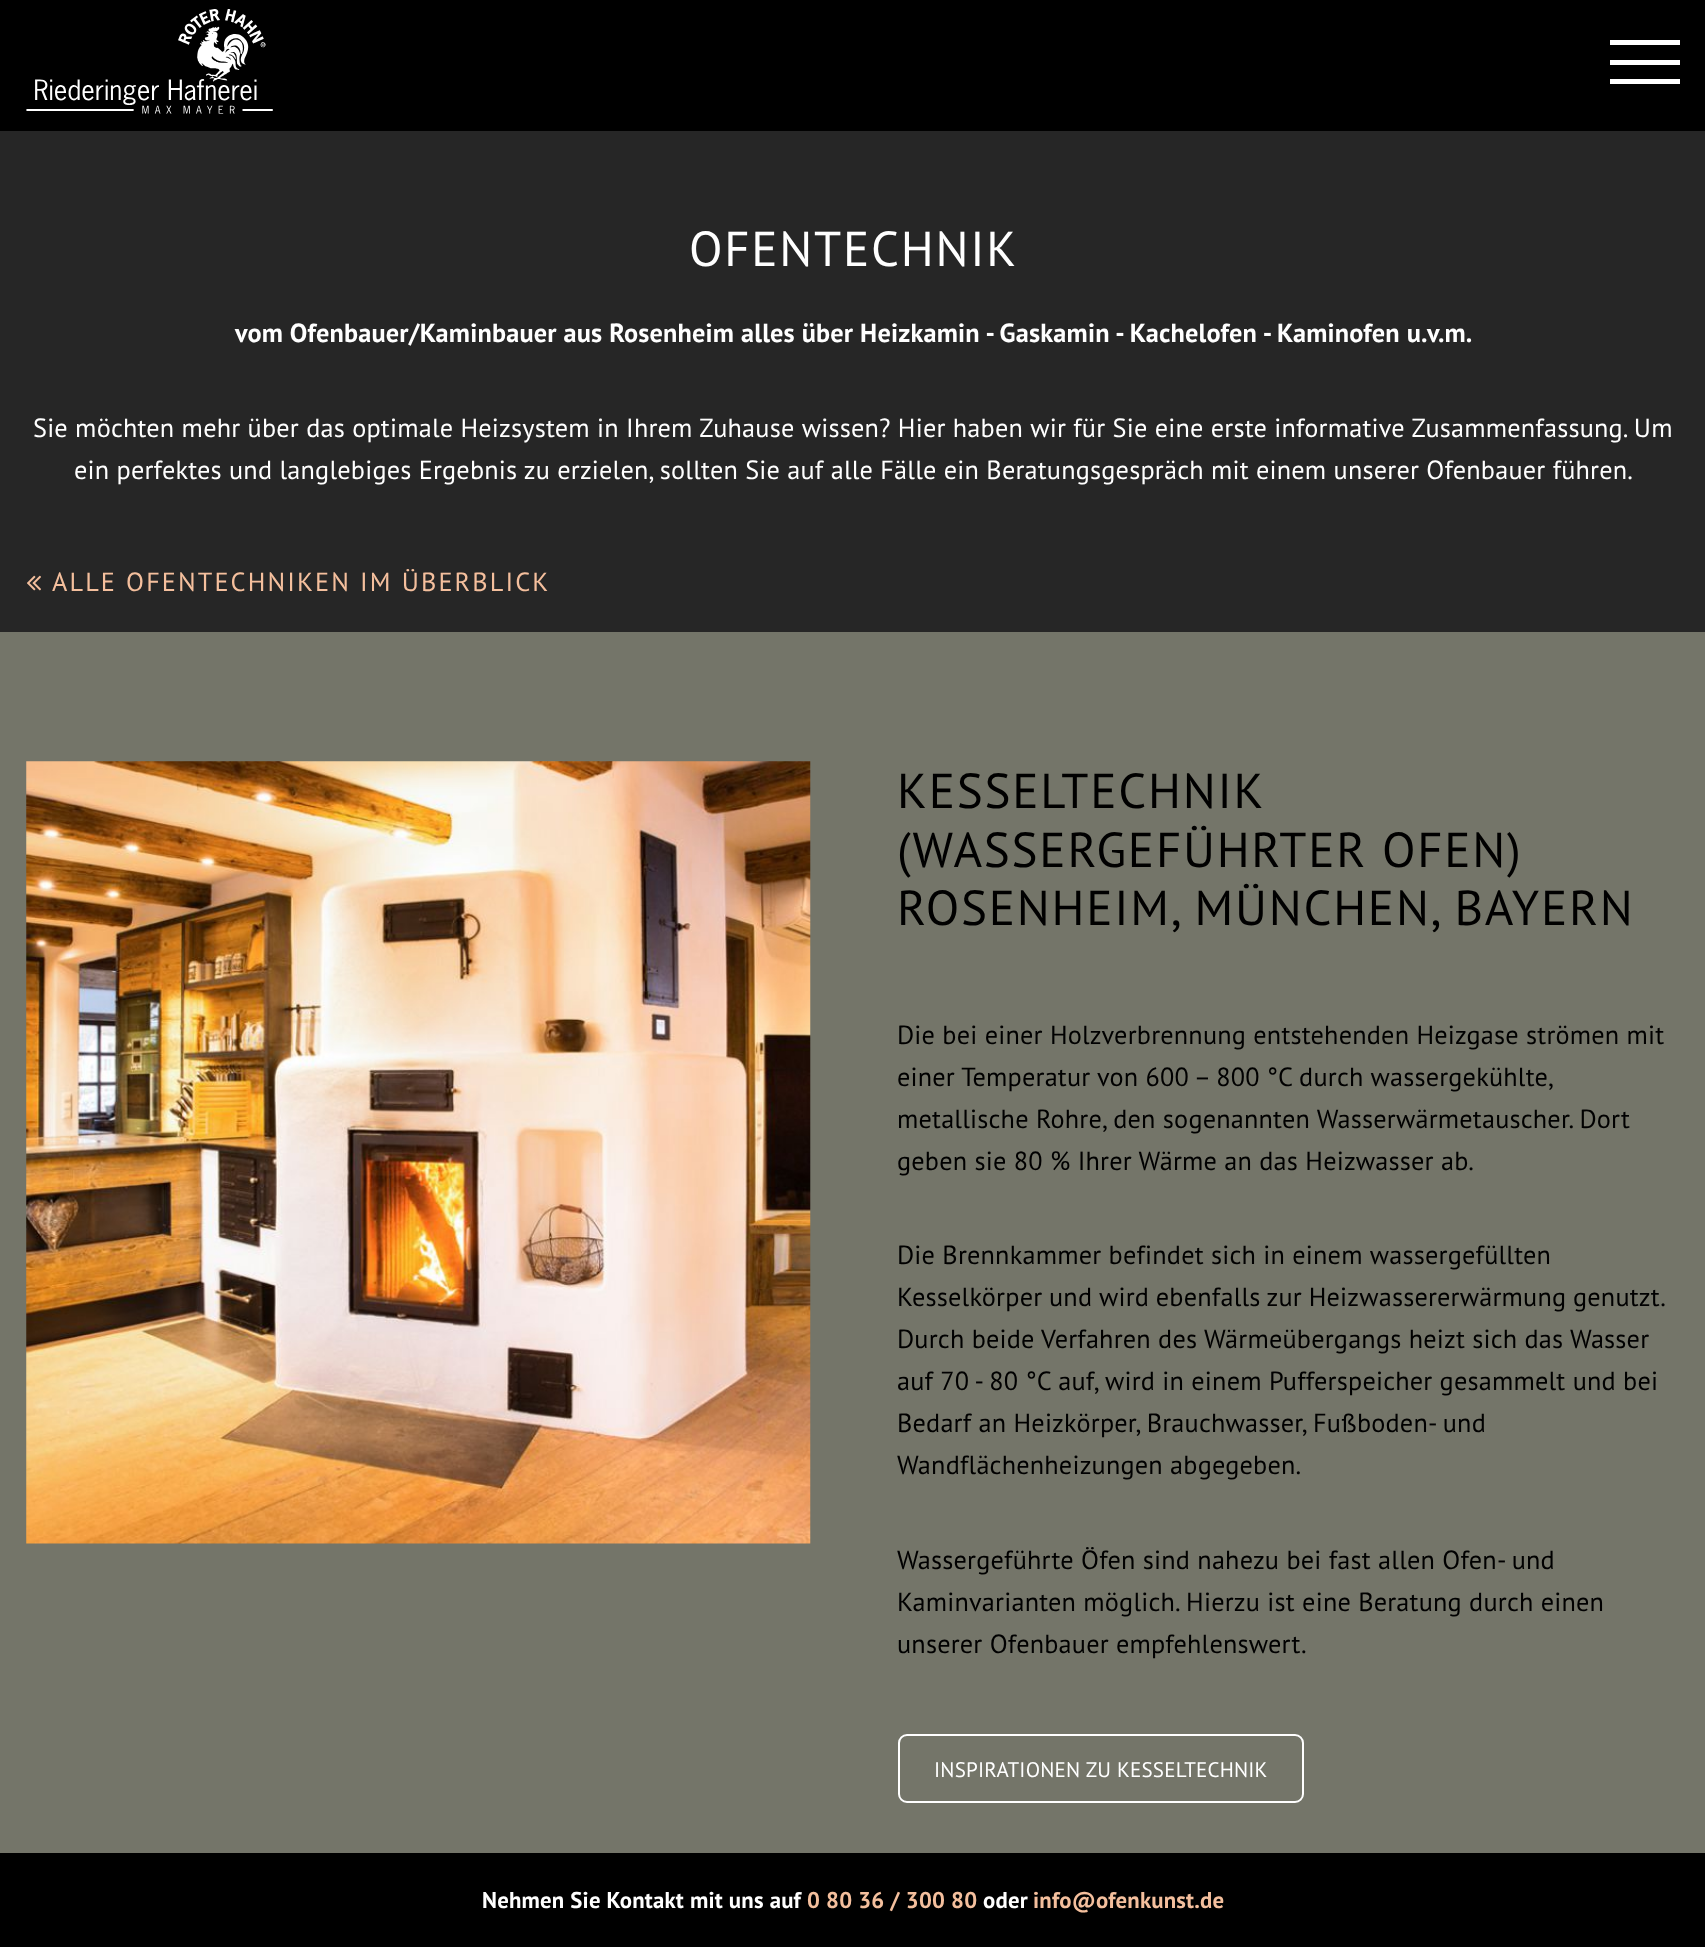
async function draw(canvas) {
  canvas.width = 1705
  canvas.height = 1947
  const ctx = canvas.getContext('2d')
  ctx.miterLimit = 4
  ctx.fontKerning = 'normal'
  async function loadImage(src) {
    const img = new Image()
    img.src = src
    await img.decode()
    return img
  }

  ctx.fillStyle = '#262626'
  ctx.fillRect(0, 0, 1705, 1947)
  ctx.fillStyle = '#000'
  ctx.fillRect(0, 0, 1705, 131)
  ctx.drawImage(await loadImage('image0.png'), 26, 9, 247, 105)
  ctx.fillStyle = '#fff'
  ctx.fillRect(1610, 40, 70, 5)
  ctx.fillRect(1610, 60, 70, 5)
  ctx.fillRect(1610, 79, 70, 5)
  ctx.letterSpacing = '1.75px'
  ctx.font = '49px PT Sans'
  ctx.fillText('OFENTECHNIK', 689, 266)
  ctx.letterSpacing = '0.2px'
  ctx.font = 'bold 26.25px PT Sans'
  ctx.fillText('vom Ofenbauer/Kaminbauer aus Rosenheim alles über Heizkamin - Gaskamin - Kachelofen - Kaminofen u.v.m.', 235, 342)
  ctx.font = '26.25px PT Sans'
  ctx.fillText('Sie möchten mehr über das optimale Heizsystem in Ihrem Zuhause wissen? Hier haben wir für Sie eine erste informative Zusammenfassung. Um', 33, 437)
  ctx.fillText('ein perfektes und langlebiges Ergebnis zu erzielen, sollten Sie auf alle Fälle ein Beratungsgespräch mit einem unserer Ofenbauer führen.', 74, 479)
  ctx.fillStyle = '#747569'
  ctx.fillRect(0, 632, 1705, 1221)
  ctx.drawImage(await loadImage('image1.png'), 27, 575, 14, 16)
  ctx.letterSpacing = '2.1px'
  ctx.fillStyle = '#f4bf9d'
  ctx.fillText('ALLE OFENTECHNIKEN IM ÜBERBLICK', 52, 591)
  ctx.drawImage(await loadImage('image2.png'), 26, 761, 785, 783)
  ctx.letterSpacing = '1.75px'
  ctx.font = '49px PT Sans'
  ctx.fillStyle = '#000'
  ctx.fillText('KESSELTECHNIK', 897, 808)
  ctx.fillText('(WASSERGEFÜHRTER OFEN)', 897, 867)
  ctx.fillText('ROSENHEIM, MÜNCHEN, BAYERN', 897, 925)
  ctx.letterSpacing = '0.2px'
  ctx.font = '26.25px PT Sans'
  ctx.fillText('Die bei einer Holzverbrennung entstehenden Heizgase strömen mit', 897, 1044)
  ctx.wordSpacing = '-0.25px'
  ctx.fillText('einer Temperatur von 600 – 800 °C durch wassergekühlte,', 897, 1086)
  ctx.wordSpacing = '0px'
  ctx.fillText('metallische Rohre, den sogenannten Wasserwärmetauscher. Dort', 897, 1128)
  ctx.fillText('geben sie 80 % Ihrer Wärme an das Heizwasser ab.', 897, 1170)
  ctx.fillText('Die Brennkammer befindet sich in einem wassergefüllten', 897, 1264)
  ctx.wordSpacing = '-0.5px'
  ctx.fillText('Kesselkörper und wird ebenfalls zur Heizwassererwärmung genutzt.', 897, 1306)
  ctx.wordSpacing = '0px'
  ctx.fillText('Durch beide Verfahren des Wärmeübergangs heizt sich das Wasser', 897, 1348)
  ctx.fillText('auf 70 - 80 °C auf, wird in einem Pufferspeicher gesammelt und bei', 897, 1390)
  ctx.fillText('Bedarf an Heizkörper, Brauchwasser, Fußboden- und', 897, 1432)
  ctx.fillText('Wandflächenheizungen abgegeben.', 897, 1474)
  ctx.fillText('Wassergeführte Öfen sind nahezu bei fast allen Ofen- und', 897, 1569)
  ctx.fillText('Kaminvarianten möglich. Hierzu ist eine Beratung durch einen', 897, 1611)
  ctx.fillText('unserer Ofenbauer empfehlenswert.', 897, 1653)
  ctx.beginPath()
  ctx.roundRect(899, 1735, 404, 67, 8)
  ctx.strokeStyle = '#fff'
  ctx.lineWidth = 2
  ctx.stroke()
  ctx.font = '21px PT Sans'
  ctx.fillStyle = '#fff'
  ctx.fillText('INSPIRATIONEN ZU KESSELTECHNIK', 934, 1777)
  ctx.fillStyle = '#000'
  ctx.fillRect(0, 1853, 1705, 94)
  ctx.font = 'bold 22.75px PT Sans'
  ctx.fillStyle = '#fff'
  ctx.fillText('Nehmen Sie Kontakt mit uns auf', 482, 1908)
  ctx.fillStyle = '#f4bf9d'
  ctx.fillText('0 80 36 / 300 80', 807, 1908)
  ctx.fillStyle = '#fff'
  ctx.fillText('oder', 983, 1908)
  ctx.fillStyle = '#f4bf9d'
  ctx.fillText('info@ofenkunst.de', 1033, 1908)
}

draw(document.querySelector('canvas'))
